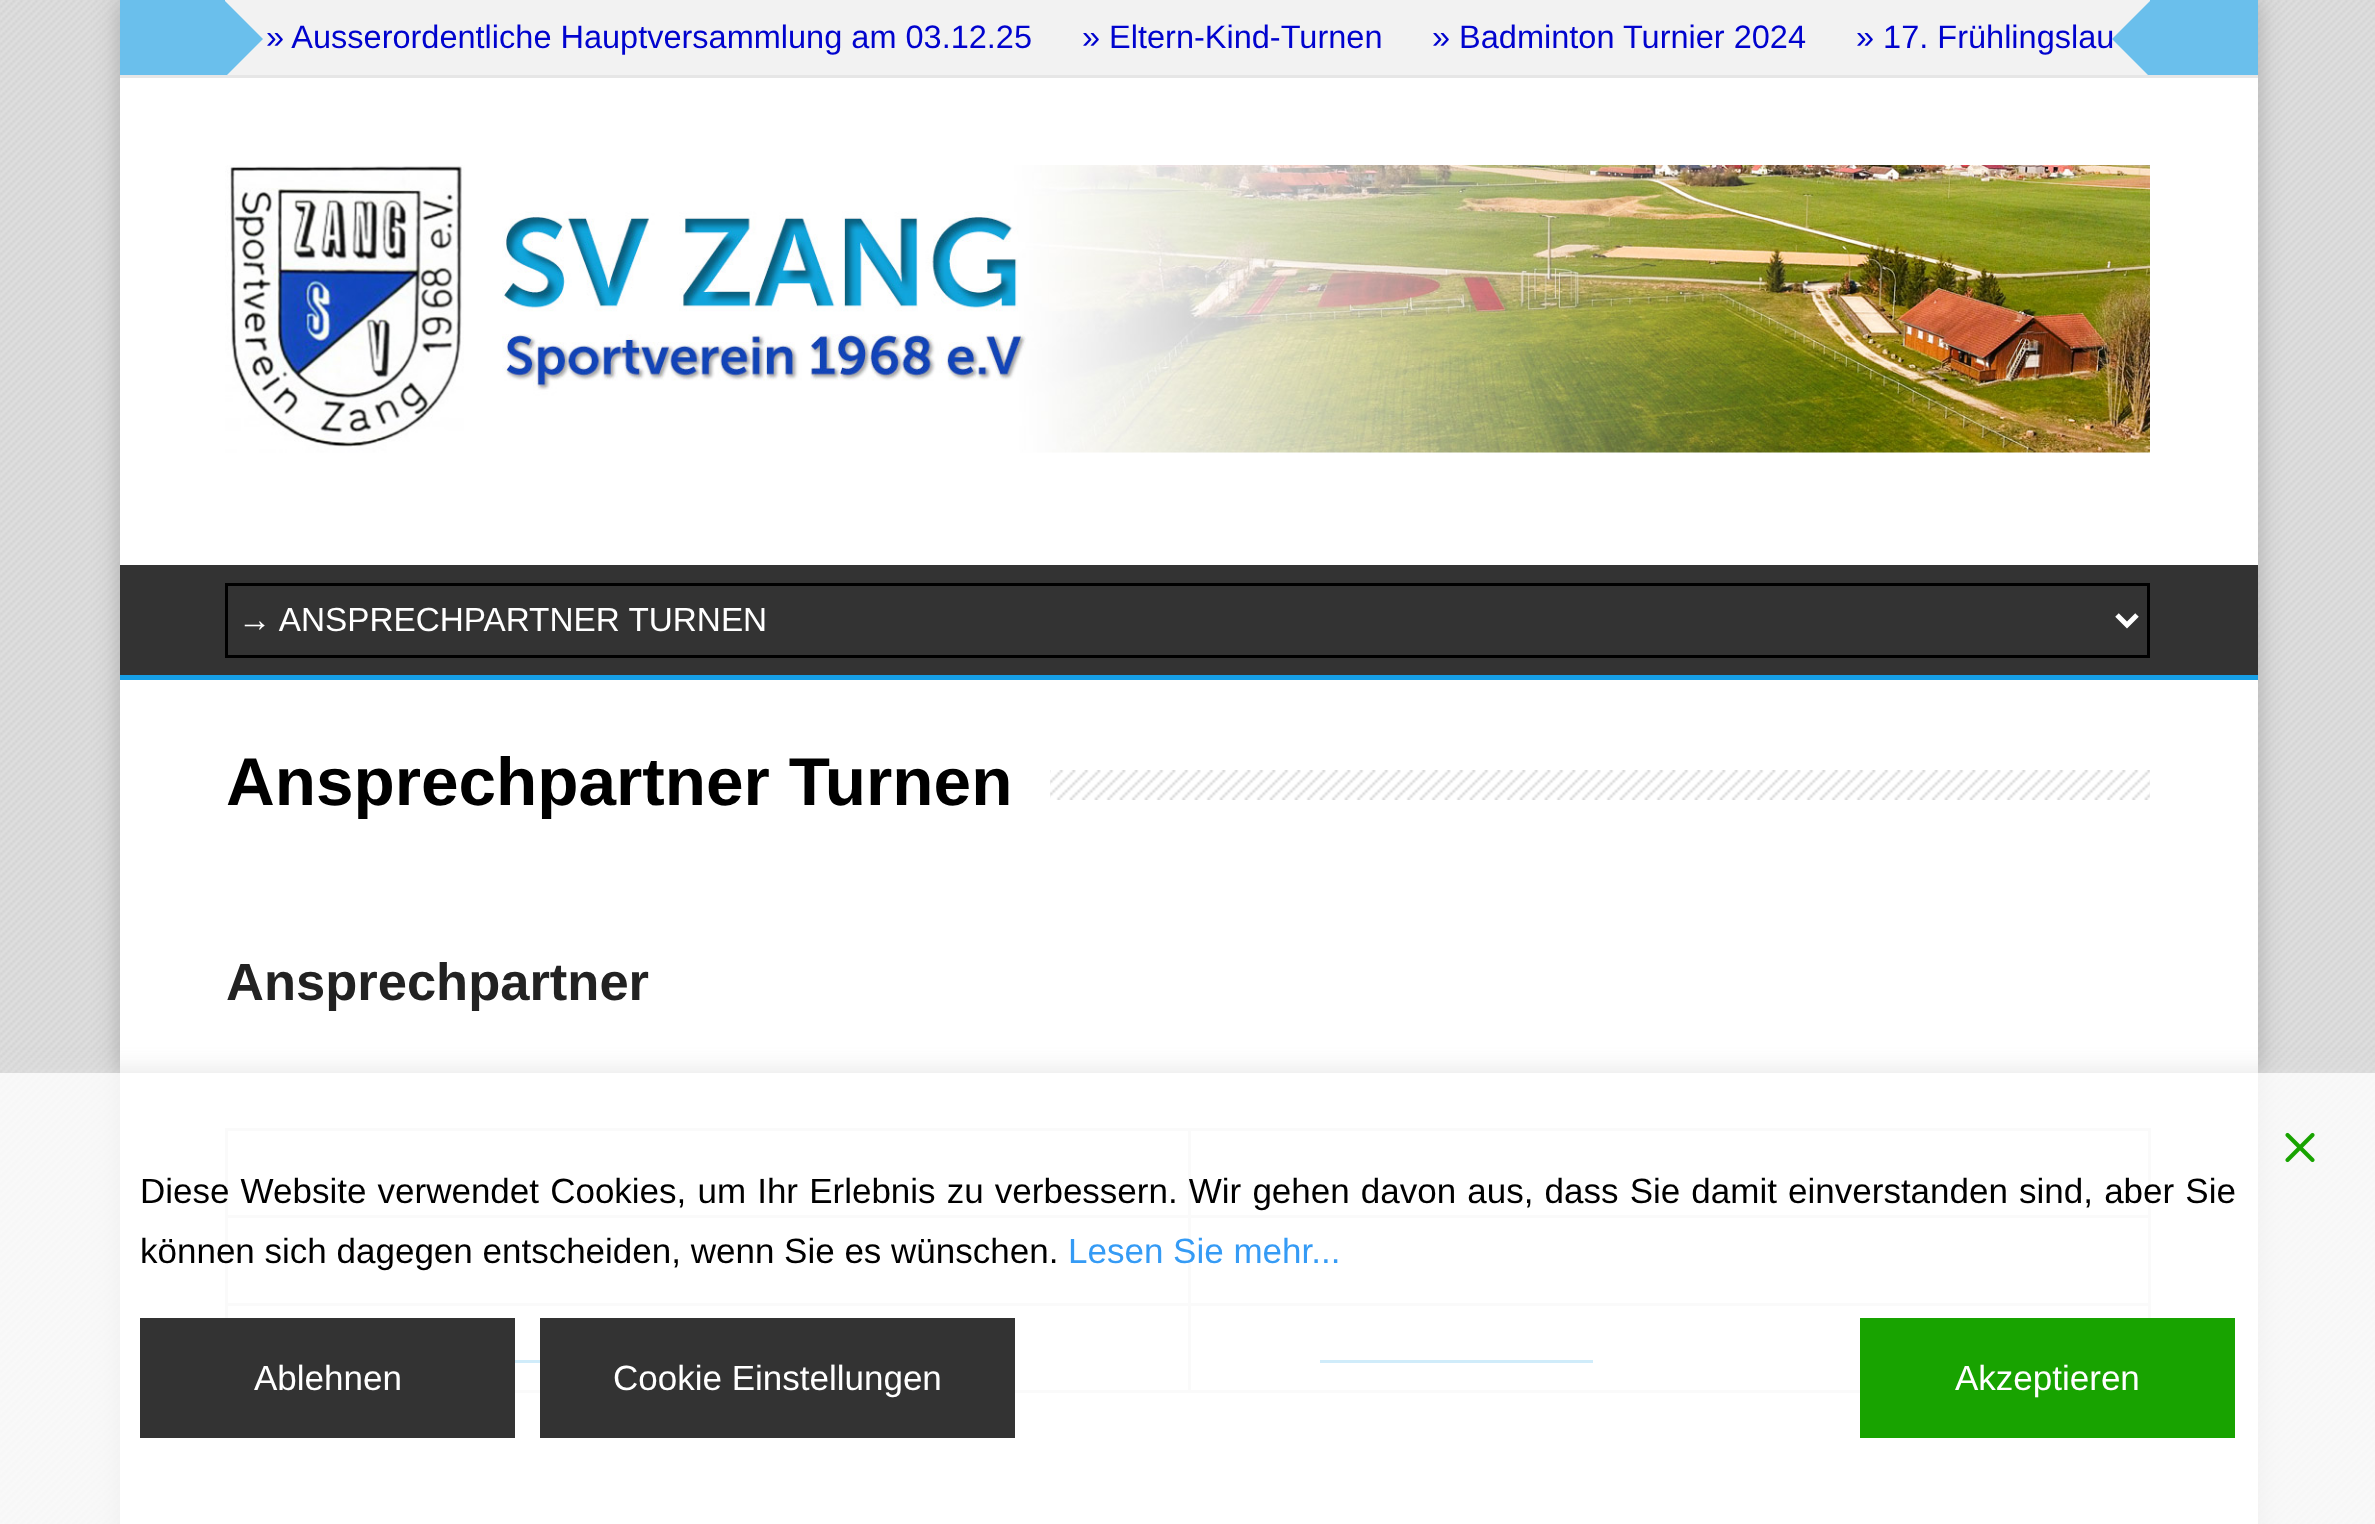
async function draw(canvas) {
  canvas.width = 2375
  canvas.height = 1524
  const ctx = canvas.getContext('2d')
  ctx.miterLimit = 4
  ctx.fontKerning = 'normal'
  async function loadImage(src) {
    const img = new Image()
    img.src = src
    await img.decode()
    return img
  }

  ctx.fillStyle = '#dedede'
  ctx.fillRect(0, 0, 2375, 1524)
  ctx.drawImage(await loadImage('image0.png'), 0, 0, 2375, 1524)
  ctx.fillStyle = '#aaa'
  ctx.filter = 'blur(12.5px)'
  ctx.beginPath()
  ctx.rect(120, 0, 2138, 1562)
  ctx.fill()
  ctx.filter = 'none'
  ctx.fillStyle = '#fff'
  ctx.fillRect(120, 78, 2138, 1446)
  ctx.fillStyle = '#6abfec'
  ctx.fillRect(120, 0, 2138, 75)
  ctx.fillStyle = '#e6e6e6'
  ctx.fillRect(120, 75, 2138, 3)
  ctx.fillStyle = '#f2f2f2'
  ctx.fillRect(225, 0, 1925, 75)
  ctx.save()
  ctx.beginPath()
  ctx.rect(225, 0, 1925, 75)
  ctx.clip()
  ctx.fillStyle = '#6abfec'
  ctx.beginPath()
  ctx.moveTo(223, -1)
  ctx.lineTo(263, 39)
  ctx.lineTo(171, 131)
  ctx.lineTo(131, 91)
  ctx.closePath()
  ctx.fill()
  ctx.restore()
  ctx.font = '32.5px Liberation Sans'
  ctx.fillStyle = '#0003ce'
  ctx.fillText('» Ausserordentliche Hauptversammlung am 03.12.25', 266, 48)
  ctx.fillText('» Eltern-Kind-Turnen', 1082, 48)
  ctx.fillText('» Badminton Turnier 2024', 1432, 48)
  ctx.fillText('» 17. Frühlingslau', 1856, 48)
  ctx.save()
  ctx.beginPath()
  ctx.rect(225, 0, 1925, 75)
  ctx.clip()
  ctx.fillStyle = '#6abfec'
  ctx.beginPath()
  ctx.moveTo(2244, 91)
  ctx.lineTo(2204, 131)
  ctx.lineTo(2112, 39)
  ctx.lineTo(2152, -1)
  ctx.closePath()
  ctx.fill()
  ctx.restore()
  ctx.drawImage(await loadImage('image1.png'), 225, 165, 1925, 288)
  ctx.fillStyle = '#333'
  ctx.fillRect(120, 565, 2138, 110)
  ctx.fillStyle = '#169fe6'
  ctx.fillRect(120, 675, 2138, 5)
  ctx.strokeStyle = '#000'
  ctx.lineWidth = 3
  ctx.strokeRect(226.5, 584.5, 1922, 72)
  ctx.beginPath()
  ctx.moveTo(2117, 615)
  ctx.lineTo(2127, 625)
  ctx.lineTo(2137, 615)
  ctx.strokeStyle = '#fff'
  ctx.lineWidth = 5
  ctx.stroke()
  ctx.font = '33.3px Liberation Sans'
  ctx.fillStyle = '#fff'
  ctx.fillText('→ ANSPRECHPARTNER TURNEN', 238, 631)
  ctx.drawImage(await loadImage('image2.png'), 1050, 770, 1100, 30)
  ctx.font = 'bold 67.5px Liberation Sans'
  ctx.fillStyle = '#000'
  ctx.fillText('Ansprechpartner Turnen', 226, 805)
  ctx.font = 'bold 52.5px Liberation Sans'
  ctx.fillStyle = '#222'
  ctx.fillText('Ansprechpartner', 226, 1000)
  ctx.fillStyle = '#e3e3e3'
  ctx.fillRect(225, 1128, 1925, 3)
  ctx.fillRect(2148, 1128, 3, 190)
  ctx.fillRect(515, 1390, 1345, 3)
  ctx.fillRect(225, 1128, 3, 190)
  ctx.fillRect(1188, 1215, 962, 3)
  ctx.fillRect(1188, 1303, 962, 3)
  ctx.fillRect(1188, 1303, 3, 90)
  ctx.fillRect(225, 1303, 965, 3)
  ctx.fillRect(1188, 1215, 3, 90)
  ctx.fillRect(225, 1215, 965, 3)
  ctx.fillRect(1188, 1128, 3, 90)
  ctx.fillStyle = '#169fe6'
  ctx.fillRect(515, 1360, 25, 3)
  ctx.fillRect(1320, 1360, 273, 3)
  ctx.save()
  ctx.beginPath()
  ctx.rect(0, 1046, 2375, 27)
  ctx.clip()
  ctx.fillStyle = '#ddd'
  ctx.filter = 'blur(14px)'
  ctx.beginPath()
  ctx.rect(-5, 1075, 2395, 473)
  ctx.fill()
  ctx.filter = 'none'
  ctx.restore()
  ctx.fillStyle = '#ffffffcc'
  ctx.fillRect(0, 1073, 2375, 451)
  ctx.drawImage(await loadImage('image3.png'), 2285, 1132, 30, 31)
  ctx.wordSpacing = '1.4px'
  ctx.font = '35px Liberation Sans'
  ctx.fillStyle = '#000'
  ctx.fillText('Diese Website verwendet Cookies, um Ihr Erlebnis zu verbessern. Wir gehen davon aus, dass Sie damit einverstanden sind, aber Sie', 140, 1203)
  ctx.wordSpacing = '0px'
  ctx.fillText('können sich dagegen entscheiden, wenn Sie es wünschen.', 140, 1263)
  ctx.fillStyle = '#359bf5'
  ctx.fillText('Lesen Sie mehr...', 1068, 1263)
  ctx.fillStyle = '#333'
  ctx.fillRect(140, 1318, 375, 120)
  ctx.fillStyle = '#fff'
  ctx.fillText('Ablehnen', 254, 1390)
  ctx.fillStyle = '#333'
  ctx.fillRect(540, 1318, 475, 120)
  ctx.fillStyle = '#fff'
  ctx.fillText('Cookie Einstellungen', 613, 1390)
  ctx.fillStyle = '#18a300'
  ctx.fillRect(1860, 1318, 375, 120)
  ctx.fillStyle = '#fff'
  ctx.fillText('Akzeptieren', 1955, 1390)
}

draw(document.querySelector('canvas'))
